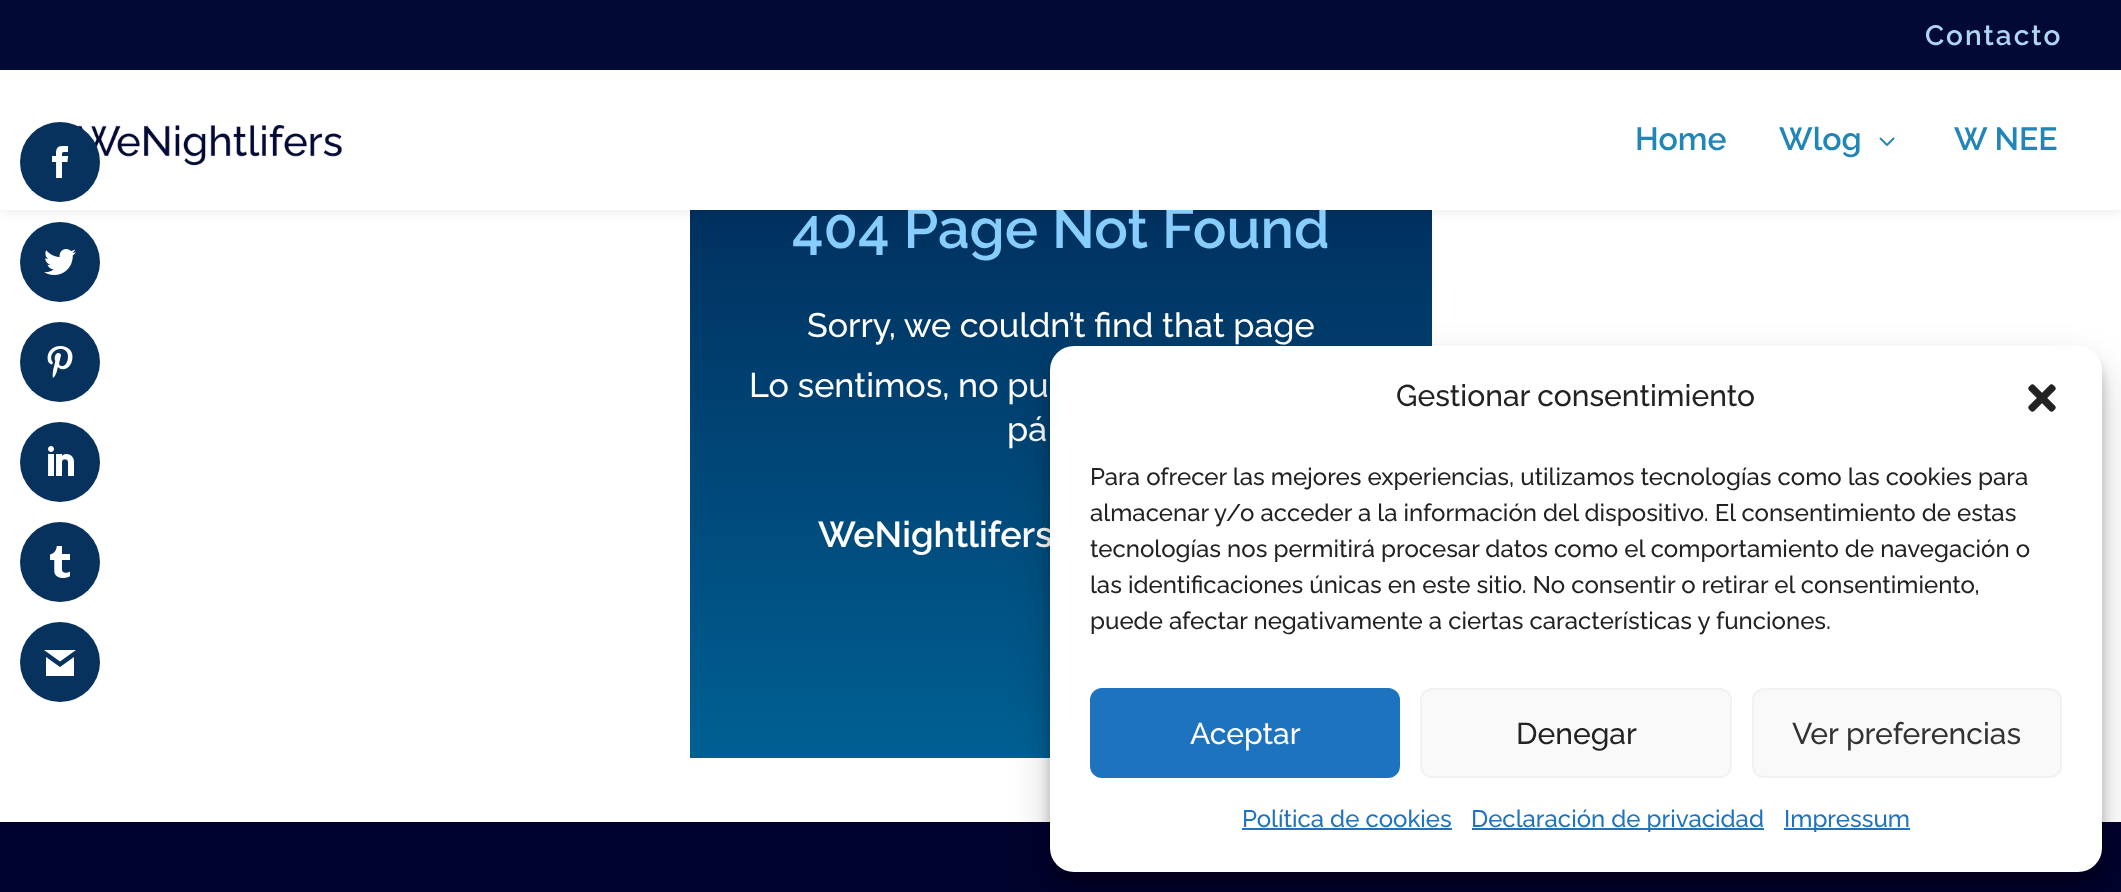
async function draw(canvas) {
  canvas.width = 2121
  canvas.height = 892
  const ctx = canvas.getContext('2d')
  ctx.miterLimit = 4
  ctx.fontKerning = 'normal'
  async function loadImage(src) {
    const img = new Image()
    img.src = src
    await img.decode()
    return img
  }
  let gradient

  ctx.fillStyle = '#fff'
  ctx.fillRect(0, 0, 2121, 892)
  gradient = ctx.createLinearGradient(1061, -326, 1061, 758)
  gradient.addColorStop(0, '#00032d')
  gradient.addColorStop(1, '#006093')
  ctx.fillStyle = gradient
  ctx.fillRect(690, 210, 742, 548)
  ctx.fillStyle = '#0000001a'
  ctx.filter = 'blur(7px)'
  ctx.beginPath()
  ctx.rect(0, 70, 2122, 140)
  ctx.fill()
  ctx.filter = 'none'
  ctx.font = '600 56px Raleway'
  ctx.fillStyle = '#87ceff'
  ctx.fillText('404 Page Not Found', 792, 248)
  ctx.fillStyle = '#fff'
  ctx.fillRect(0, 70, 2121, 140)
  ctx.drawImage(await loadImage('image5.png'), 77, 124, 265, 42)
  ctx.fillStyle = '#06325d'
  ctx.beginPath()
  ctx.arc(60, 162, 40, 0, 2 * Math.PI)
  ctx.fill()
  ctx.drawImage(await loadImage('image0.png'), 52, 146, 17, 32)
  ctx.beginPath()
  ctx.arc(60, 262, 40, 0, 2 * Math.PI)
  ctx.fill()
  ctx.drawImage(await loadImage('image1.png'), 44, 249, 32, 26)
  ctx.beginPath()
  ctx.arc(60, 362, 40, 0, 2 * Math.PI)
  ctx.fill()
  ctx.drawImage(await loadImage('image2.png'), 47, 346, 26, 32)
  ctx.beginPath()
  ctx.arc(60, 462, 40, 0, 2 * Math.PI)
  ctx.fill()
  ctx.drawImage(await loadImage('image3.png'), 48, 446, 26, 30)
  ctx.beginPath()
  ctx.arc(60, 562, 40, 0, 2 * Math.PI)
  ctx.fill()
  ctx.drawImage(await loadImage('image4.png'), 50, 546, 20, 32)
  ctx.beginPath()
  ctx.arc(60, 662, 40, 0, 2 * Math.PI)
  ctx.fill()
  ctx.fillStyle = '#fff'
  ctx.beginPath()
  ctx.moveTo(76, 650)
  ctx.lineTo(44, 650)
  ctx.lineTo(60, 661.5)
  ctx.closePath()
  ctx.moveTo(60, 667)
  ctx.lineTo(46, 657)
  ctx.lineTo(46, 676)
  ctx.lineTo(74, 676)
  ctx.lineTo(74, 657)
  ctx.closePath()
  ctx.fill()
  ctx.fillStyle = '#020935'
  ctx.fillRect(0, 0, 2121, 70)
  ctx.letterSpacing = '2px'
  ctx.font = '600 28px Raleway'
  ctx.fillStyle = '#aed6f1'
  ctx.fillText('Contacto', 1925, 45)
  ctx.letterSpacing = '0px'
  ctx.font = '600 32px Raleway'
  ctx.fillStyle = '#2085b7'
  ctx.fillText('Home', 1635, 150)
  ctx.fillText('Wlog', 1779, 150)
  ctx.drawImage(await loadImage('image6.png'), 1879, 137, 16, 9)
  ctx.fillText('W NEE', 1954, 150)
  ctx.font = '500 34px Raleway'
  ctx.fillStyle = '#fff'
  ctx.fillText('Sorry, we couldn’t find that page', 807, 337)
  ctx.fillText('Lo sentimos, no pu', 749, 397)
  ctx.fillText('pá', 1007, 441)
  ctx.font = '600 36px Raleway'
  ctx.fillText('WeNightlifers', 818, 547)
  ctx.fillStyle = '#00032d'
  ctx.fillRect(0, 822, 2121, 70)
  ctx.fillStyle = '#0000003b'
  ctx.filter = 'blur(6px)'
  ctx.beginPath()
  ctx.roundRect(1050, 358, 1052, 526, 24)
  ctx.fill()
  ctx.filter = 'none'
  ctx.fillStyle = '#00000030'
  ctx.filter = 'blur(20px)'
  ctx.beginPath()
  ctx.roundRect(1050, 366, 1052, 526, 24)
  ctx.fill()
  ctx.filter = 'none'
  ctx.fillStyle = '#fff'
  ctx.beginPath()
  ctx.roundRect(1050, 346, 1052, 526, 24)
  ctx.fill()
  ctx.font = '500 30px Raleway'
  ctx.fillStyle = '#222'
  ctx.fillText('Gestionar consentimiento', 1396, 406)
  ctx.drawImage(await loadImage('image7.png'), 2028, 384, 28, 28)
  ctx.font = '500 24px Raleway'
  ctx.fillText('Para ofrecer las mejores experiencias, utilizamos tecnologías como las cookies para', 1090, 485)
  ctx.fillText('almacenar y/o acceder a la información del dispositivo. El consentimiento de estas', 1090, 521)
  ctx.fillText('tecnologías nos permitirá procesar datos como el comportamiento de navegación o', 1090, 557)
  ctx.fillText('las identificaciones únicas en este sitio. No consentir o retirar el consentimiento,', 1090, 593)
  ctx.fillText('puede afectar negativamente a ciertas características y funciones.', 1090, 629)
  ctx.fillStyle = '#1e73be'
  ctx.beginPath()
  ctx.roundRect(1091, 689, 308, 88, 11)
  ctx.fill()
  ctx.strokeStyle = '#1e73be'
  ctx.lineWidth = 2
  ctx.stroke()
  ctx.font = '500 30px Raleway'
  ctx.fillStyle = '#fff'
  ctx.fillText('Aceptar', 1190, 744)
  ctx.fillStyle = '#f9f9f9'
  ctx.beginPath()
  ctx.roundRect(1421, 689, 310, 88, 11)
  ctx.fill()
  ctx.strokeStyle = '#f2f2f2'
  ctx.stroke()
  ctx.fillStyle = '#222'
  ctx.fillText('Denegar', 1516, 744)
  ctx.fillStyle = '#f9f9f9'
  ctx.beginPath()
  ctx.roundRect(1753, 689, 308, 88, 11)
  ctx.fill()
  ctx.stroke()
  ctx.fillStyle = '#333'
  ctx.fillText('Ver preferencias', 1792, 744)
  ctx.font = '500 24px Raleway'
  ctx.fillStyle = '#1e73be'
  ctx.fillText('Política de cookies', 1242, 827)
  ctx.fillRect(1242, 828, 210, 2)
  ctx.fillRect(1472, 828, 292, 2)
  ctx.fillText('Declaración de privacidad', 1471, 827)
  ctx.fillRect(1784, 828, 126, 2)
  ctx.fillText('Impressum', 1784, 827)
}

draw(document.querySelector('canvas'))
